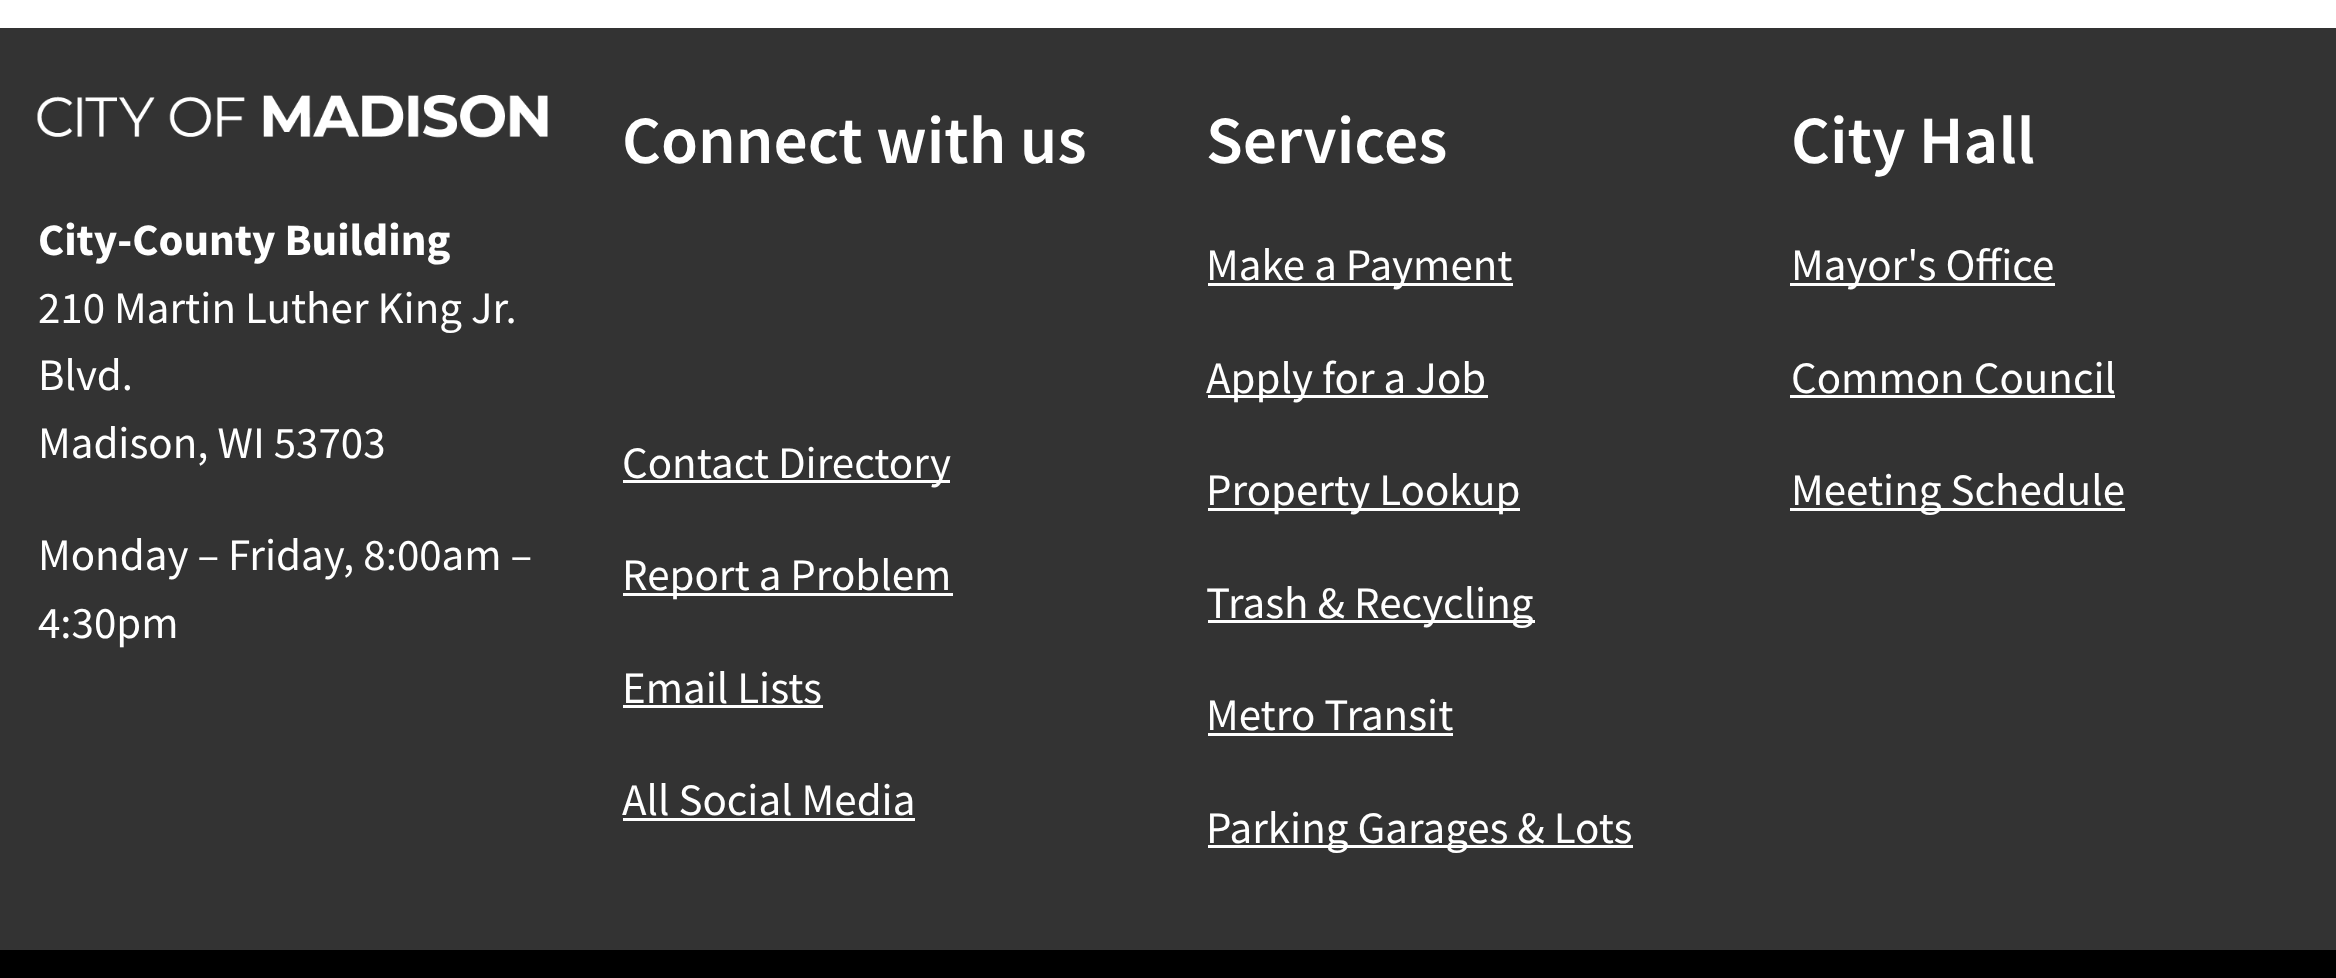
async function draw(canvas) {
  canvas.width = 2336
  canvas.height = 978
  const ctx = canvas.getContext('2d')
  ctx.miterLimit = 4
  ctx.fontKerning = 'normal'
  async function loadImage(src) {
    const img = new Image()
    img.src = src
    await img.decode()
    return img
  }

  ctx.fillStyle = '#fff'
  ctx.fillRect(0, 0, 2336, 978)
  ctx.fillStyle = '#333'
  ctx.fillRect(0, 28, 2336, 922)
  ctx.drawImage(await loadImage('image0.png'), 37, 95, 511, 43)
  ctx.font = 'bold 45px Source Sans Pro'
  ctx.fillStyle = '#fff'
  ctx.fillText('City-County Building', 38, 255)
  ctx.font = '45px Source Sans Pro'
  ctx.fillText('210 Martin Luther King Jr.', 38, 323)
  ctx.fillText('Blvd.', 38, 390)
  ctx.fillText('Madison, WI 53703', 38, 458)
  ctx.fillText('Monday – Friday, 8:00am –', 38, 570)
  ctx.fillText('4:30pm', 38, 638)
  ctx.font = '600 67.5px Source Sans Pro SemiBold'
  ctx.fillText('Connect with us', 622, 163)
  ctx.fillRect(623, 480, 327, 3)
  ctx.font = '45px Source Sans Pro'
  ctx.fillText('Contact Directory', 622, 478)
  ctx.fillRect(623, 593, 330, 3)
  ctx.fillText('Report a Problem', 622, 590)
  ctx.fillText('Email Lists', 622, 703)
  ctx.fillRect(623, 705, 200, 3)
  ctx.fillText('All Social Media', 622, 815)
  ctx.fillRect(623, 818, 292, 3)
  ctx.font = '600 67.5px Source Sans Pro SemiBold'
  ctx.fillText('Services', 1206, 163)
  ctx.fillRect(1208, 283, 305, 3)
  ctx.font = '45px Source Sans Pro'
  ctx.fillText('Make a Payment', 1206, 280)
  ctx.fillRect(1208, 395, 280, 3)
  ctx.fillText('Apply for a Job', 1206, 393)
  ctx.fillRect(1208, 508, 312, 3)
  ctx.fillText('Property Lookup', 1206, 505)
  ctx.fillRect(1208, 620, 327, 3)
  ctx.fillText('Trash & Recycling', 1206, 618)
  ctx.fillText('Metro Transit', 1206, 730)
  ctx.fillRect(1208, 733, 245, 3)
  ctx.fillRect(1208, 845, 425, 3)
  ctx.fillText('Parking Garages & Lots', 1206, 843)
  ctx.font = '600 67.5px Source Sans Pro SemiBold'
  ctx.fillText('City Hall', 1791, 163)
  ctx.fillRect(1790, 283, 265, 3)
  ctx.font = '45px Source Sans Pro'
  ctx.fillText('Mayor\'s Office', 1791, 280)
  ctx.fillText('Common Council', 1791, 393)
  ctx.fillRect(1790, 395, 325, 3)
  ctx.fillRect(1790, 508, 335, 3)
  ctx.fillText('Meeting Schedule', 1791, 505)
  ctx.fillStyle = '#000'
  ctx.fillRect(0, 950, 2336, 28)
}

draw(document.querySelector('canvas'))
